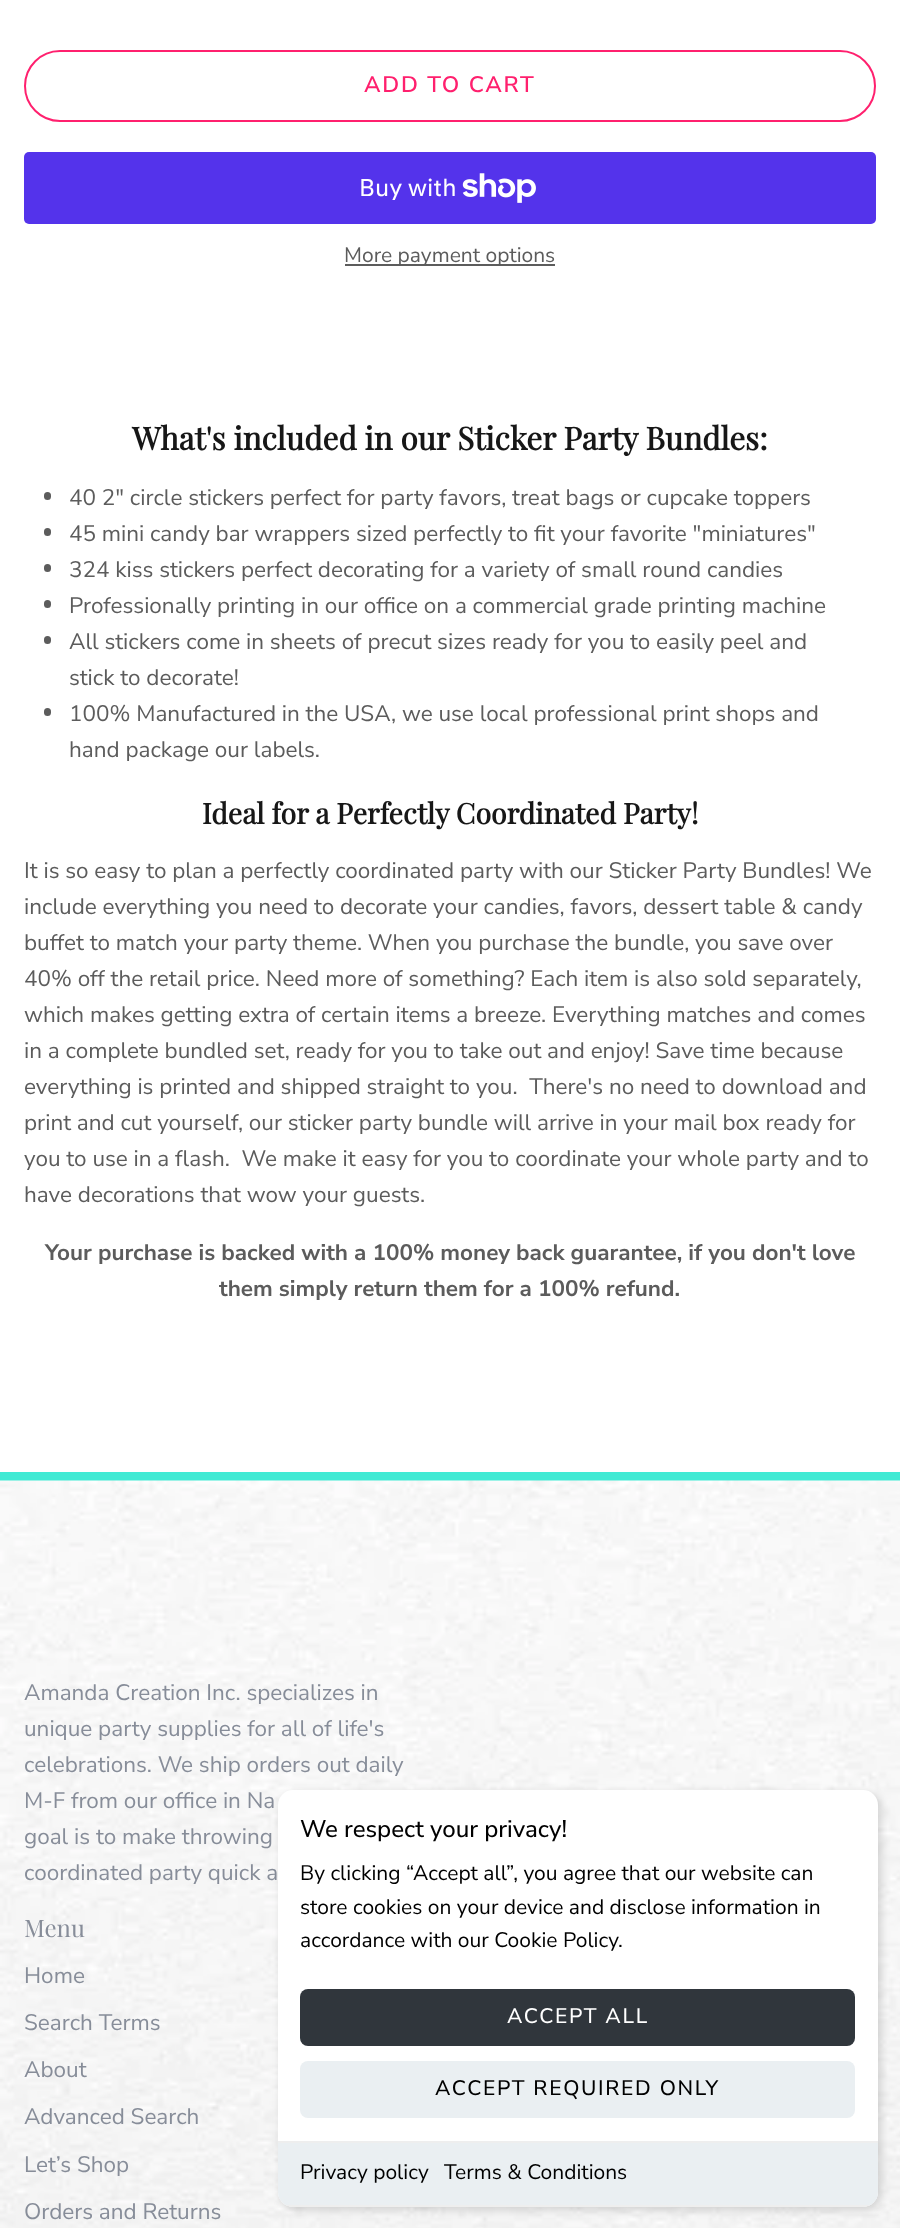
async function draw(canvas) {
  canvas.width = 900
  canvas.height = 2228
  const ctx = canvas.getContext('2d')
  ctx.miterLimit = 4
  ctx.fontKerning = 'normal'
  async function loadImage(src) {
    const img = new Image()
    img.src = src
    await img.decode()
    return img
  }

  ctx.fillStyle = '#fff'
  ctx.fillRect(0, 0, 900, 2228)
  ctx.beginPath()
  ctx.roundRect(25, 51, 850, 70, 35)
  ctx.strokeStyle = '#ff206e'
  ctx.lineWidth = 2
  ctx.stroke()
  ctx.letterSpacing = '1.75px'
  ctx.font = '600 22.5px Nunito Sans'
  ctx.fillStyle = '#ff206e'
  ctx.fillText('ADD TO CART', 364, 92)
  ctx.fillStyle = '#5433eb'
  ctx.beginPath()
  ctx.roundRect(24, 152, 852, 72, 5)
  ctx.fill()
  ctx.letterSpacing = '0px'
  ctx.font = '24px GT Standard'
  ctx.fillStyle = '#fff'
  ctx.fillText('Buy with', 359, 196)
  ctx.drawImage(await loadImage('image0.png'), 462, 173, 74, 30)
  ctx.fillStyle = '#5c5c5c'
  ctx.fillRect(345, 264, 210, 2)
  ctx.font = '21px Nunito Sans'
  ctx.fillText('More payment options', 344, 262)
  ctx.font = 'bold 31.5px Playfair Display'
  ctx.fillStyle = '#171717'
  ctx.fillText('What\'s included in our Sticker Party Bundles:', 132, 450)
  ctx.fillStyle = '#5c5c5c'
  ctx.beginPath()
  ctx.roundRect(44, 492, 7, 8, 3.5)
  ctx.fill()
  ctx.font = '22.5px Nunito Sans'
  ctx.fillText('40 2" circle stickers perfect for party favors, treat bags or cupcake toppers', 69, 505)
  ctx.beginPath()
  ctx.roundRect(44, 528, 7, 8, 3.5)
  ctx.fill()
  ctx.fillText('45 mini candy bar wrappers sized perfectly to fit your favorite "miniatures"', 69, 541)
  ctx.beginPath()
  ctx.roundRect(44, 564, 7, 8, 3.5)
  ctx.fill()
  ctx.fillText('324 kiss stickers perfect decorating for a variety of small round candies', 69, 577)
  ctx.beginPath()
  ctx.roundRect(44, 600, 7, 8, 3.5)
  ctx.fill()
  ctx.fillText('Professionally printing in our office on a commercial grade printing machine', 69, 613)
  ctx.beginPath()
  ctx.roundRect(44, 636, 7, 8, 3.5)
  ctx.fill()
  ctx.fillText('All stickers come in sheets of precut sizes ready for you to easily peel and', 69, 649)
  ctx.fillText('stick to decorate!', 69, 685)
  ctx.beginPath()
  ctx.roundRect(44, 708, 7, 8, 3.5)
  ctx.fill()
  ctx.fillText('100% Manufactured in the USA, we use local professional print shops and', 69, 721)
  ctx.fillText('hand package our labels.', 69, 757)
  ctx.font = 'bold 28.5px Playfair Display'
  ctx.fillStyle = '#171717'
  ctx.fillText('Ideal for a Perfectly Coordinated Party!', 202, 824)
  ctx.font = '22.5px Nunito Sans'
  ctx.fillStyle = '#5c5c5c'
  ctx.fillText('It is so easy to plan a perfectly coordinated party with our Sticker Party Bundles! We', 24, 878)
  ctx.fillText('include everything you need to decorate your candies, favors, dessert table & candy', 24, 914)
  ctx.fillText('buffet to match your party theme. When you purchase the bundle, you save over', 24, 950)
  ctx.fillText('40% off the retail price. Need more of something? Each item is also sold separately,', 24, 986)
  ctx.fillText('which makes getting extra of certain items a breeze. Everything matches and comes', 24, 1022)
  ctx.fillText('in a complete bundled set, ready for you to take out and enjoy! Save time because', 24, 1058)
  ctx.fillText('everything is printed and shipped straight to you.  There\'s no need to download and', 24, 1094)
  ctx.fillText('print and cut yourself, our sticker party bundle will arrive in your mail box ready for', 24, 1130)
  ctx.fillText('you to use in a flash.  We make it easy for you to coordinate your whole party and to', 24, 1166)
  ctx.fillText('have decorations that wow your guests.', 24, 1202)
  ctx.font = 'bold 22.5px Nunito Sans'
  ctx.fillText('Your purchase is backed with a 100% money back guarantee, if you don\'t love', 45, 1260)
  ctx.fillText('them simply return them for a 100% refund.', 219, 1296)
  ctx.fillStyle = '#41ead4'
  ctx.fillRect(0, 1472, 900, 9)
  ctx.drawImage(await loadImage('image1.png'), 0, 1480, 900, 748)
  ctx.font = '22.5px Nunito Sans'
  ctx.fillStyle = '#878d99'
  ctx.fillText('Amanda Creation Inc. specializes in', 24, 1700)
  ctx.fillText('unique party supplies for all of life\'s', 24, 1736)
  ctx.fillText('celebrations. We ship orders out daily', 24, 1772)
  ctx.fillText('M-F from our office in Na', 24, 1808)
  ctx.fillText('goal is to make throwing', 24, 1844)
  ctx.fillText('coordinated party quick a', 24, 1880)
  ctx.font = '24px Playfair Display'
  ctx.fillText('Menu', 24, 1937)
  ctx.font = '22.5px Nunito Sans'
  ctx.fillText('Home', 24, 1983)
  ctx.fillText('Search Terms', 24, 2030)
  ctx.fillText('About', 24, 2077)
  ctx.fillText('Advanced Search', 24, 2124)
  ctx.fillText('Let’s Shop', 24, 2172)
  ctx.fillText('Orders and Returns', 24, 2219)
  ctx.fillStyle = '#00000026'
  ctx.filter = 'blur(4.5px)'
  ctx.beginPath()
  ctx.roundRect(281, 1793, 600, 417, 15)
  ctx.fill()
  ctx.filter = 'none'
  ctx.fillStyle = '#fff'
  ctx.beginPath()
  ctx.roundRect(278, 1790, 600, 417, 15)
  ctx.fill()
  ctx.font = '500 24px Nunito Sans'
  ctx.fillStyle = '#000'
  ctx.fillText('We respect your privacy!', 300, 1837)
  ctx.font = '21px Nunito Sans'
  ctx.fillText('By clicking “Accept all”, you agree that our website can', 300, 1880)
  ctx.fillText('store cookies on your device and disclose information in', 300, 1914)
  ctx.fillText('accordance with our Cookie Policy.', 300, 1947)
  ctx.fillStyle = '#30363c'
  ctx.beginPath()
  ctx.roundRect(300, 1989, 555, 57, 8)
  ctx.fill()
  ctx.letterSpacing = '1.7px'
  ctx.font = '500 21px Nunito Sans'
  ctx.fillStyle = '#fff'
  ctx.fillText('ACCEPT ALL', 507, 2023)
  ctx.fillStyle = '#eaeff2'
  ctx.beginPath()
  ctx.roundRect(300, 2061, 555, 57, 8)
  ctx.fill()
  ctx.fillStyle = '#000'
  ctx.fillText('ACCEPT REQUIRED ONLY', 435, 2095)
  ctx.fillStyle = '#eaeff2'
  ctx.beginPath()
  ctx.roundRect(278, 2141, 600, 66, [0, 0, 15, 15])
  ctx.fill()
  ctx.fillStyle = '#eee'
  ctx.fillRect(278, 2141, 600, 2)
  ctx.save()
  ctx.beginPath()
  ctx.roundRect(278, 1790, 600, 417, 15)
  ctx.clip()
  ctx.fillRect(278, 2205, 600, 2)
  ctx.restore()
  ctx.letterSpacing = '0px'
  ctx.font = '21px Nunito Sans'
  ctx.fillStyle = '#000'
  ctx.fillText('Privacy policy', 300, 2179)
  ctx.fillText('Terms & Conditions', 444, 2179)
}

draw(document.querySelector('canvas'))
